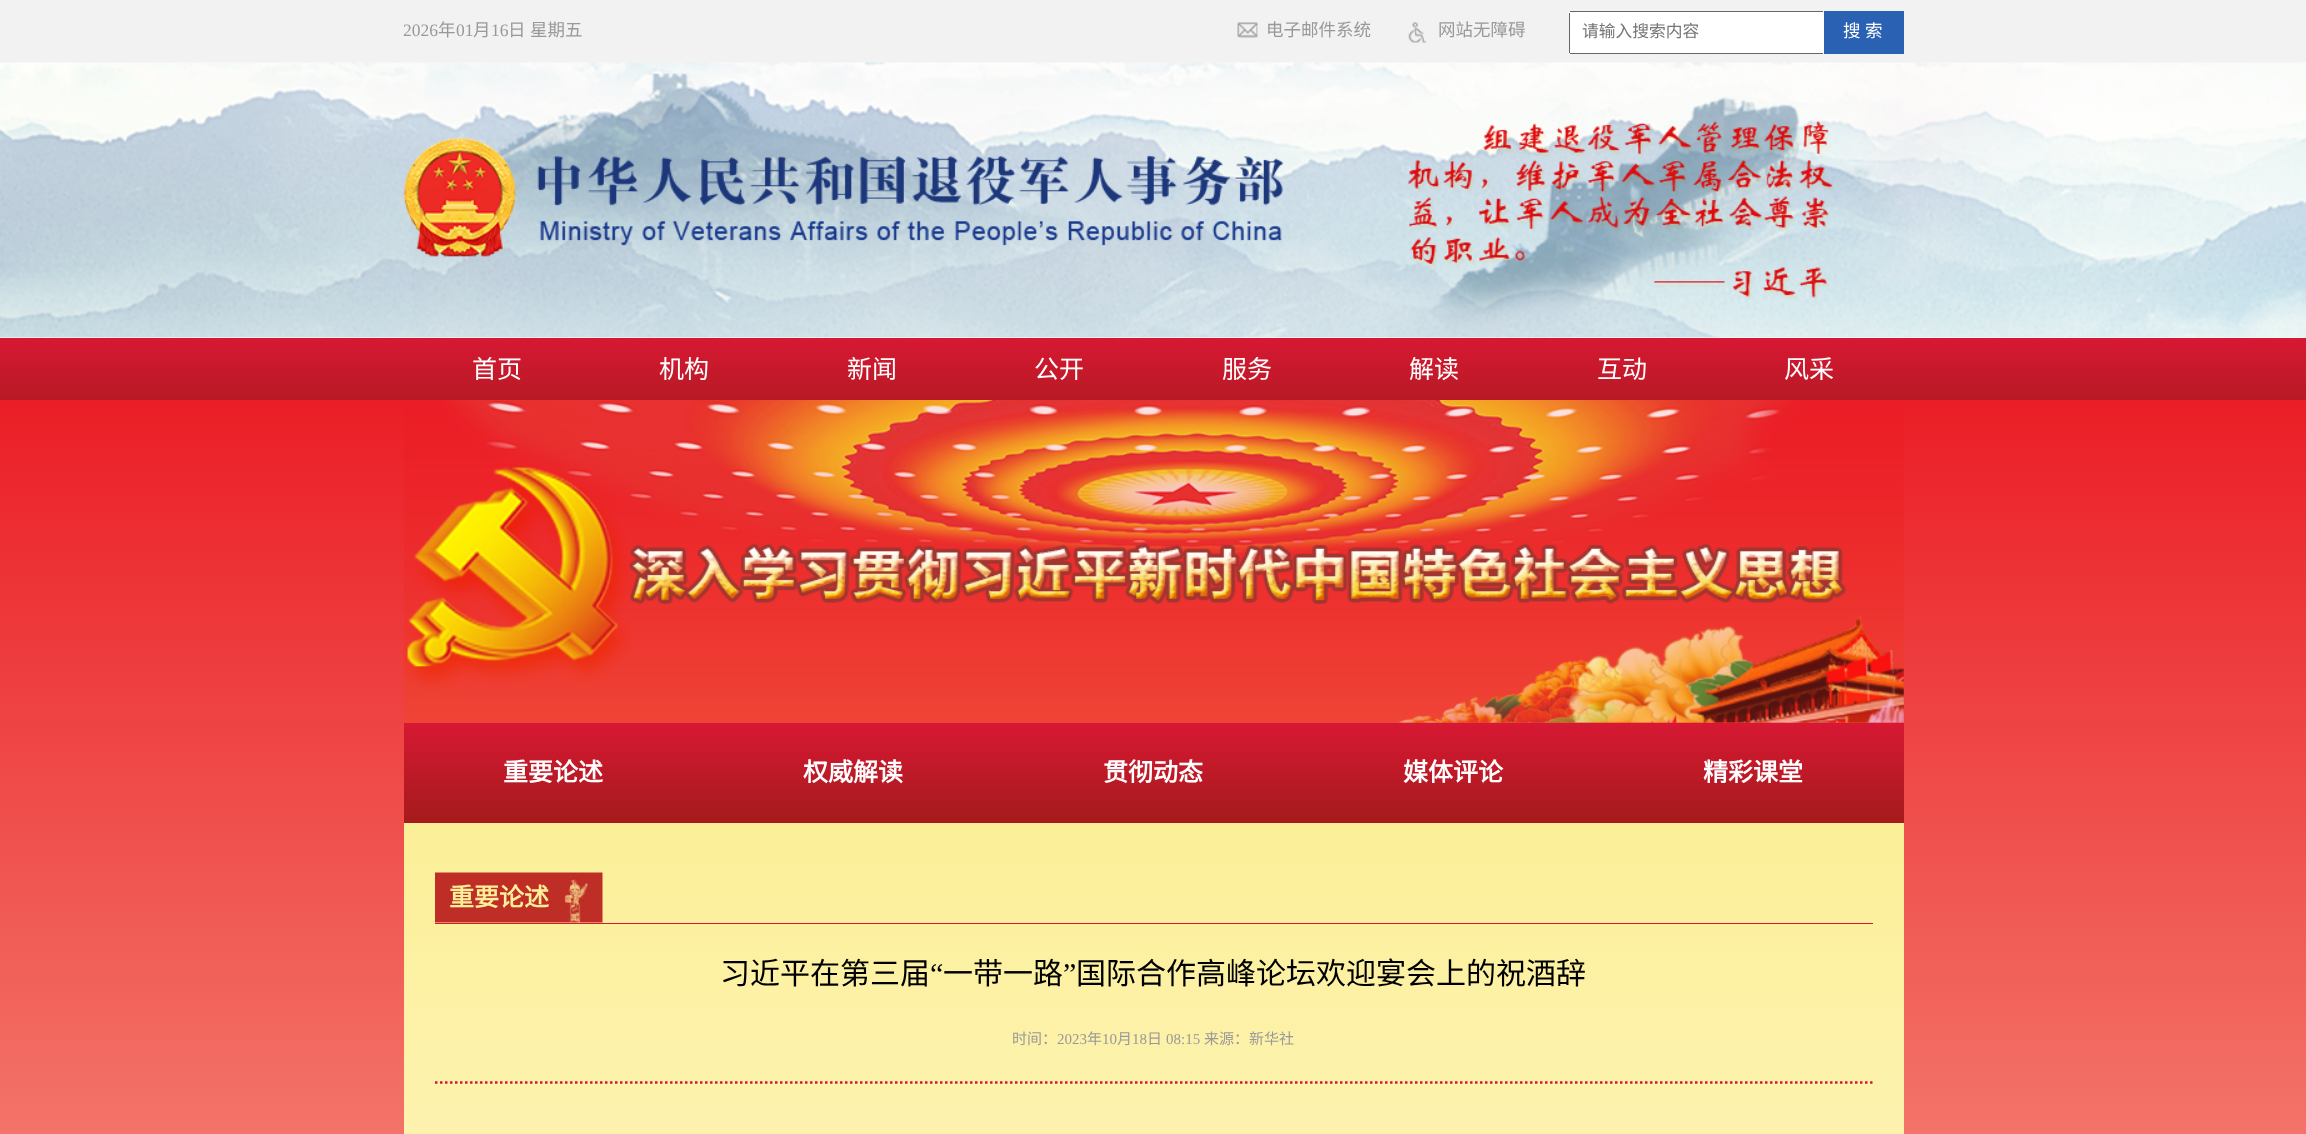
async function draw(canvas) {
  canvas.width = 2306
  canvas.height = 1134
  const ctx = canvas.getContext('2d')
  ctx.miterLimit = 4
  ctx.fontKerning = 'normal'
  async function loadImage(src) {
    const img = new Image()
    img.src = src
    await img.decode()
    return img
  }
  let gradient

  ctx.fillStyle = '#fff'
  ctx.fillRect(0, 0, 2306, 1134)
  ctx.fillStyle = '#f2f2f2'
  ctx.fillRect(0, 0, 2306, 63)
  ctx.font = '17.5px Liberation Serif'
  ctx.fillStyle = '#999'
  ctx.fillText('2026', 403, 36)
  ctx.font = '17.5px Noto Sans CJK SC'
  ctx.fillText('年', 438, 36)
  ctx.font = '17.5px Liberation Serif'
  ctx.fillText('01', 456, 36)
  ctx.font = '17.5px Noto Sans CJK SC'
  ctx.fillText('月', 473, 36)
  ctx.font = '17.5px Liberation Serif'
  ctx.fillText('16', 491, 36)
  ctx.font = '17.5px Noto Sans CJK SC'
  ctx.fillText('日', 508, 36)
  ctx.fillText('星期五', 530, 36)
  ctx.drawImage(await loadImage('image0.png'), 1237, 22, 21, 16)
  ctx.fillText('电子邮件系统', 1266, 36)
  ctx.drawImage(await loadImage('image1.png'), 1408, 22, 19, 21)
  ctx.fillText('网站无障碍', 1438, 36)
  ctx.fillStyle = '#fff'
  ctx.beginPath()
  ctx.roundRect(1569, 11, 255, 43, 2.5)
  ctx.fill()
  ctx.fillStyle = '#666'
  ctx.fillRect(1570, 11, 253, 1)
  ctx.fillRect(1570, 53, 253, 1)
  ctx.fillRect(1569, 13, 1, 40)
  ctx.font = '16.75px Noto Sans CJK SC'
  ctx.fillStyle = '#757575'
  ctx.fillText('请输入搜索内容', 1582, 37)
  ctx.fillStyle = '#2b61b3'
  ctx.fillRect(1824, 11, 80, 43)
  ctx.font = '17.5px Noto Sans CJK SC'
  ctx.fillStyle = '#fff'
  ctx.fillText('搜', 1843, 37)
  ctx.fillText('索', 1865, 37)
  ctx.drawImage(await loadImage('image2.png'), 0, 62, 2306, 276)
  ctx.drawImage(await loadImage('image3.png'), 403, 137, 881, 120)
  gradient = ctx.createLinearGradient(1153, 337, 1153, 438)
  gradient.addColorStop(0, '#d81833')
  gradient.addColorStop(1, '#a41b1c')
  ctx.fillStyle = gradient
  ctx.fillRect(0, 338, 2306, 62)
  ctx.font = '25px Noto Sans CJK SC'
  ctx.fillStyle = '#fff'
  ctx.fillText('首页', 472, 378)
  ctx.fillText('机构', 659, 378)
  ctx.fillText('新闻', 847, 378)
  ctx.fillText('公开', 1034, 378)
  ctx.fillText('服务', 1222, 378)
  ctx.fillText('解读', 1409, 378)
  ctx.fillText('互动', 1597, 378)
  ctx.fillText('风采', 1784, 378)
  gradient = ctx.createLinearGradient(1153, 400, 1153, 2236)
  gradient.addColorStop(0, '#eb1e26')
  gradient.addColorStop(1, '#fff4cc')
  ctx.fillStyle = gradient
  ctx.fillRect(0, 400, 2306, 734)
  ctx.drawImage(await loadImage('image4.png'), 403, 400, 1501, 323)
  gradient = ctx.createLinearGradient(1154, 722, 1154, 823)
  gradient.addColorStop(0, '#d81833')
  gradient.addColorStop(1, '#a41b1c')
  ctx.fillStyle = gradient
  ctx.fillRect(404, 723, 1500, 100)
  ctx.font = 'bold 25px Noto Sans CJK SC'
  ctx.fillStyle = '#fff'
  ctx.fillText('重要论述', 503, 781)
  ctx.fillText('权威解读', 803, 781)
  ctx.fillText('贯彻动态', 1103, 781)
  ctx.fillText('媒体评论', 1403, 781)
  ctx.fillText('精彩课堂', 1703, 781)
  gradient = ctx.createLinearGradient(1154, 822, 1154, 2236)
  gradient.addColorStop(0, '#fcef98')
  gradient.addColorStop(1, '#fff')
  ctx.fillStyle = gradient
  ctx.fillRect(404, 823, 1500, 311)
  ctx.fillStyle = '#d71832'
  ctx.fillRect(435, 923, 1438, 1)
  ctx.drawImage(await loadImage('image5.png'), 435, 872, 168, 51)
  ctx.fillStyle = '#fcef99'
  ctx.fillText('重要论述', 449, 906)
  ctx.font = '30px Noto Sans CJK SC'
  ctx.fillStyle = '#000'
  ctx.fillText('习近平在第三届', 720, 984)
  ctx.font = '30px Liberation Serif'
  ctx.fillText('“', 930, 984)
  ctx.font = '30px Noto Sans CJK SC'
  ctx.fillText('一带一路', 943, 984)
  ctx.font = '30px Liberation Serif'
  ctx.fillText('”', 1063, 984)
  ctx.font = '30px Noto Sans CJK SC'
  ctx.fillText('国际合作高峰论坛欢迎宴会上的祝酒辞', 1076, 984)
  ctx.beginPath()
  ctx.moveTo(435, 1082.5)
  ctx.lineTo(1872.5, 1082.5)
  ctx.strokeStyle = '#d71832'
  ctx.lineWidth = 2.5
  ctx.setLineDash([2.5, 2.5])
  ctx.stroke()
  ctx.font = '15px Noto Sans CJK SC'
  ctx.fillStyle = '#999'
  ctx.fillText('时间：', 1012, 1044)
  ctx.font = '15px Liberation Serif'
  ctx.fillText('2023', 1057, 1044)
  ctx.font = '15px Noto Sans CJK SC'
  ctx.fillText('年', 1087, 1044)
  ctx.font = '15px Liberation Serif'
  ctx.fillText('10', 1102, 1044)
  ctx.font = '15px Noto Sans CJK SC'
  ctx.fillText('月', 1117, 1044)
  ctx.font = '15px Liberation Serif'
  ctx.fillText('18', 1132, 1044)
  ctx.font = '15px Noto Sans CJK SC'
  ctx.fillText('日', 1147, 1044)
  ctx.font = '15px Liberation Serif'
  ctx.fillText('08:15', 1166, 1044)
  ctx.font = '15px Noto Sans CJK SC'
  ctx.fillText('来源：新华社', 1204, 1044)
}

draw(document.querySelector('canvas'))
